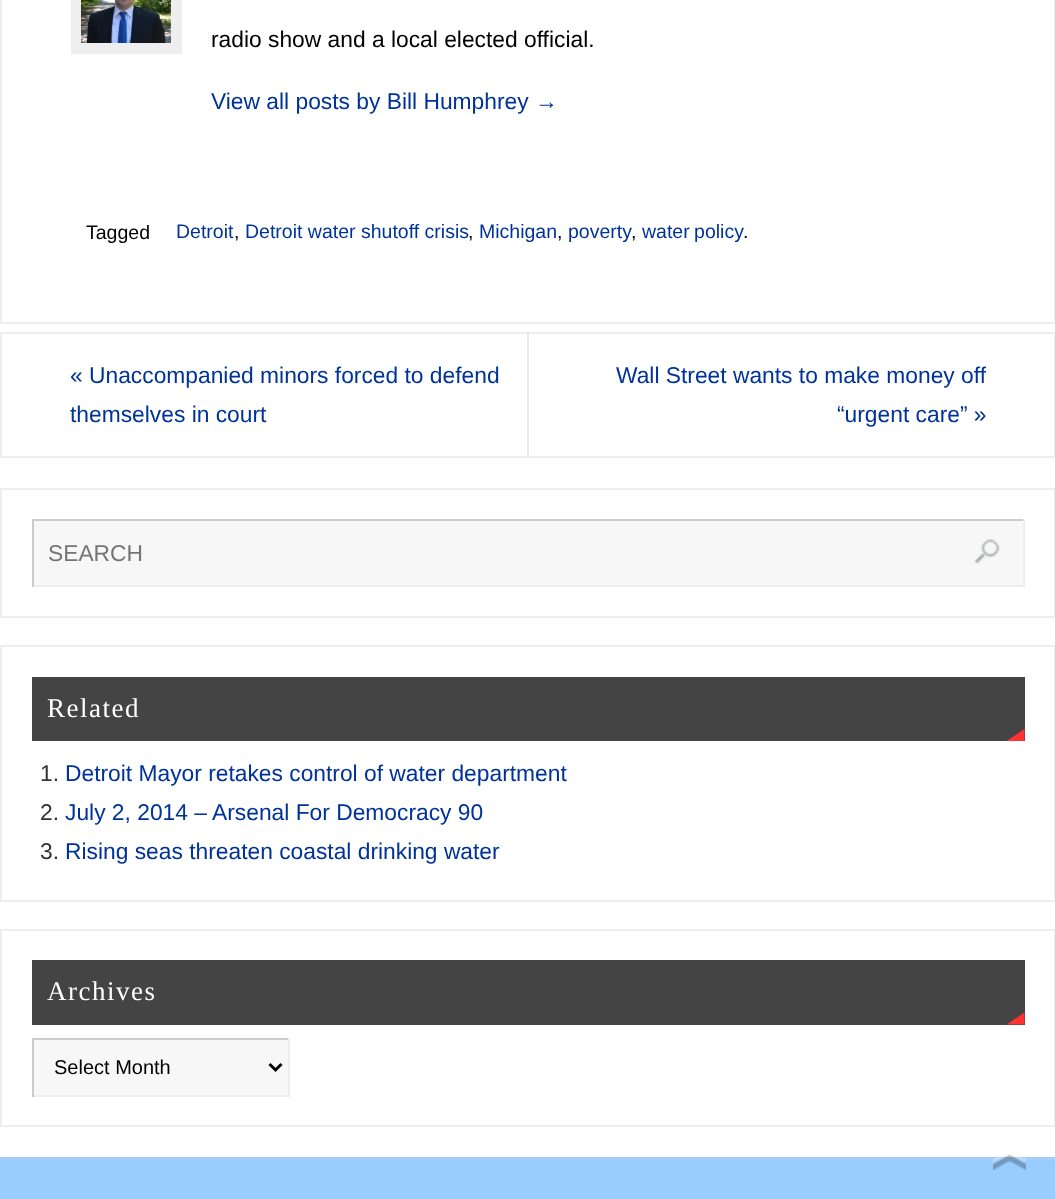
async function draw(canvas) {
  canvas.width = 1055
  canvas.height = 1199
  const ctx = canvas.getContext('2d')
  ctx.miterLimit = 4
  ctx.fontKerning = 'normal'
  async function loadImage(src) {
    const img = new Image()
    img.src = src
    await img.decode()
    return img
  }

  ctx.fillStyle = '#fff'
  ctx.fillRect(0, 0, 1055, 1199)
  ctx.strokeStyle = '#eee'
  ctx.lineWidth = 2
  ctx.strokeRect(1, -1, 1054, 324)
  ctx.lineWidth = 11
  ctx.strokeRect(76.5, -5.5, 100, 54)
  ctx.drawImage(await loadImage('image0.png'), 81, 0, 90, 43)
  ctx.font = '22.8px Liberation Sans'
  ctx.fillStyle = '#000'
  ctx.fillText('radio show and a local elected official.', 211, 47)
  ctx.fillStyle = '#039'
  ctx.fillText('View all posts by Bill Humphrey →', 211, 109)
  ctx.font = '19.5px Liberation Sans'
  ctx.fillStyle = '#000'
  ctx.fillText('Tagged', 86, 239)
  ctx.fillStyle = '#039'
  ctx.fillText('Detroit', 176, 238)
  ctx.fillStyle = '#000'
  ctx.fillText(',', 234, 238)
  ctx.fillStyle = '#039'
  ctx.fillText('Detroit water shutoff crisis', 245, 238)
  ctx.fillStyle = '#000'
  ctx.fillText(',', 468, 238)
  ctx.fillStyle = '#039'
  ctx.fillText('Michigan', 479, 238)
  ctx.fillStyle = '#000'
  ctx.fillText(',', 557, 238)
  ctx.fillStyle = '#039'
  ctx.fillText('poverty', 568, 238)
  ctx.fillStyle = '#000'
  ctx.fillText(',', 631, 238)
  ctx.wordSpacing = '-1px'
  ctx.fillStyle = '#039'
  ctx.fillText('water policy', 642, 238)
  ctx.wordSpacing = '0px'
  ctx.fillStyle = '#000'
  ctx.fillText('.', 743, 238)
  ctx.lineWidth = 2
  ctx.strokeRect(1, 333, 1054, 124)
  ctx.fillStyle = '#00000014'
  ctx.fillRect(527, 333, 2, 123)
  ctx.font = '22.8px Liberation Sans'
  ctx.fillStyle = '#039'
  ctx.fillText('« Unaccompanied minors forced to defend', 70, 383)
  ctx.fillText('themselves in court', 70, 422)
  ctx.fillText('Wall Street wants to make money off', 616, 383)
  ctx.fillText('“urgent care” »', 837, 422)
  ctx.strokeRect(1, 489, 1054, 128)
  ctx.fillStyle = '#f7f7f7'
  ctx.fillRect(34, 521, 989, 64)
  ctx.fillStyle = '#ccc'
  ctx.fillRect(32, 519, 993, 2)
  ctx.fillStyle = '#eee'
  ctx.fillRect(1023, 519, 2, 68)
  ctx.fillRect(32, 585, 993, 2)
  ctx.fillStyle = '#ccc'
  ctx.fillRect(32, 519, 2, 68)
  ctx.fillStyle = '#757575'
  ctx.fillText('SEARCH', 48, 561)
  ctx.drawImage(await loadImage('image1.png'), 974, 539, 26, 25)
  ctx.strokeRect(1, 646, 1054, 255)
  ctx.fillStyle = '#444'
  ctx.fillRect(32, 677, 993, 64)
  ctx.letterSpacing = '1.5px'
  ctx.font = '27px Liberation Serif'
  ctx.fillStyle = '#fff'
  ctx.fillText('Related', 47, 717)
  ctx.fillStyle = '#f33'
  ctx.beginPath()
  ctx.moveTo(1024.5, 741)
  ctx.lineTo(1006.5, 741)
  ctx.lineTo(1024.5, 729)
  ctx.closePath()
  ctx.fill()
  ctx.letterSpacing = '0px'
  ctx.font = '22.8px Liberation Sans'
  ctx.fillStyle = '#333'
  ctx.fillText('1.', 40, 781)
  ctx.fillStyle = '#039'
  ctx.fillText('Detroit Mayor retakes control of water department', 65, 781)
  ctx.fillStyle = '#333'
  ctx.fillText('2.', 40, 820)
  ctx.fillStyle = '#039'
  ctx.fillText('July 2, 2014 – Arsenal For Democracy 90', 65, 820)
  ctx.fillStyle = '#333'
  ctx.fillText('3.', 40, 859)
  ctx.fillStyle = '#039'
  ctx.fillText('Rising seas threaten coastal drinking water', 65, 859)
  ctx.strokeRect(1, 930, 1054, 196)
  ctx.fillStyle = '#444'
  ctx.fillRect(32, 960, 993, 65)
  ctx.letterSpacing = '1.5px'
  ctx.font = '27px Liberation Serif'
  ctx.fillStyle = '#fff'
  ctx.fillText('Archives', 47, 1000)
  ctx.fillStyle = '#f33'
  ctx.beginPath()
  ctx.moveTo(1024.5, 1024.5)
  ctx.lineTo(1006.5, 1024.5)
  ctx.lineTo(1024.5, 1012.5)
  ctx.closePath()
  ctx.fill()
  ctx.fillStyle = '#f7f7f7'
  ctx.fillRect(34, 1040, 254, 55)
  ctx.fillStyle = '#ccc'
  ctx.fillRect(32, 1038, 258, 2)
  ctx.fillStyle = '#eee'
  ctx.fillRect(288, 1038, 2, 59)
  ctx.fillRect(32, 1095, 258, 2)
  ctx.fillStyle = '#ccc'
  ctx.fillRect(32, 1038, 2, 59)
  ctx.beginPath()
  ctx.moveTo(269.5, 1064)
  ctx.lineTo(275.5, 1070)
  ctx.lineTo(281.5, 1064)
  ctx.strokeStyle = '#000'
  ctx.lineWidth = 3
  ctx.stroke()
  ctx.letterSpacing = '0px'
  ctx.font = '20px Liberation Sans'
  ctx.fillStyle = '#000'
  ctx.fillText('Select Month', 54, 1074)
  ctx.fillStyle = '#9cf'
  ctx.fillRect(0, 1157, 1055, 42)
  ctx.fillStyle = '#a3d1ff'
  ctx.fillRect(0, 1158, 1055, 2)
  ctx.drawImage(await loadImage('image2.png'), 993, 1154, 33, 16)
}

draw(document.querySelector('canvas'))
